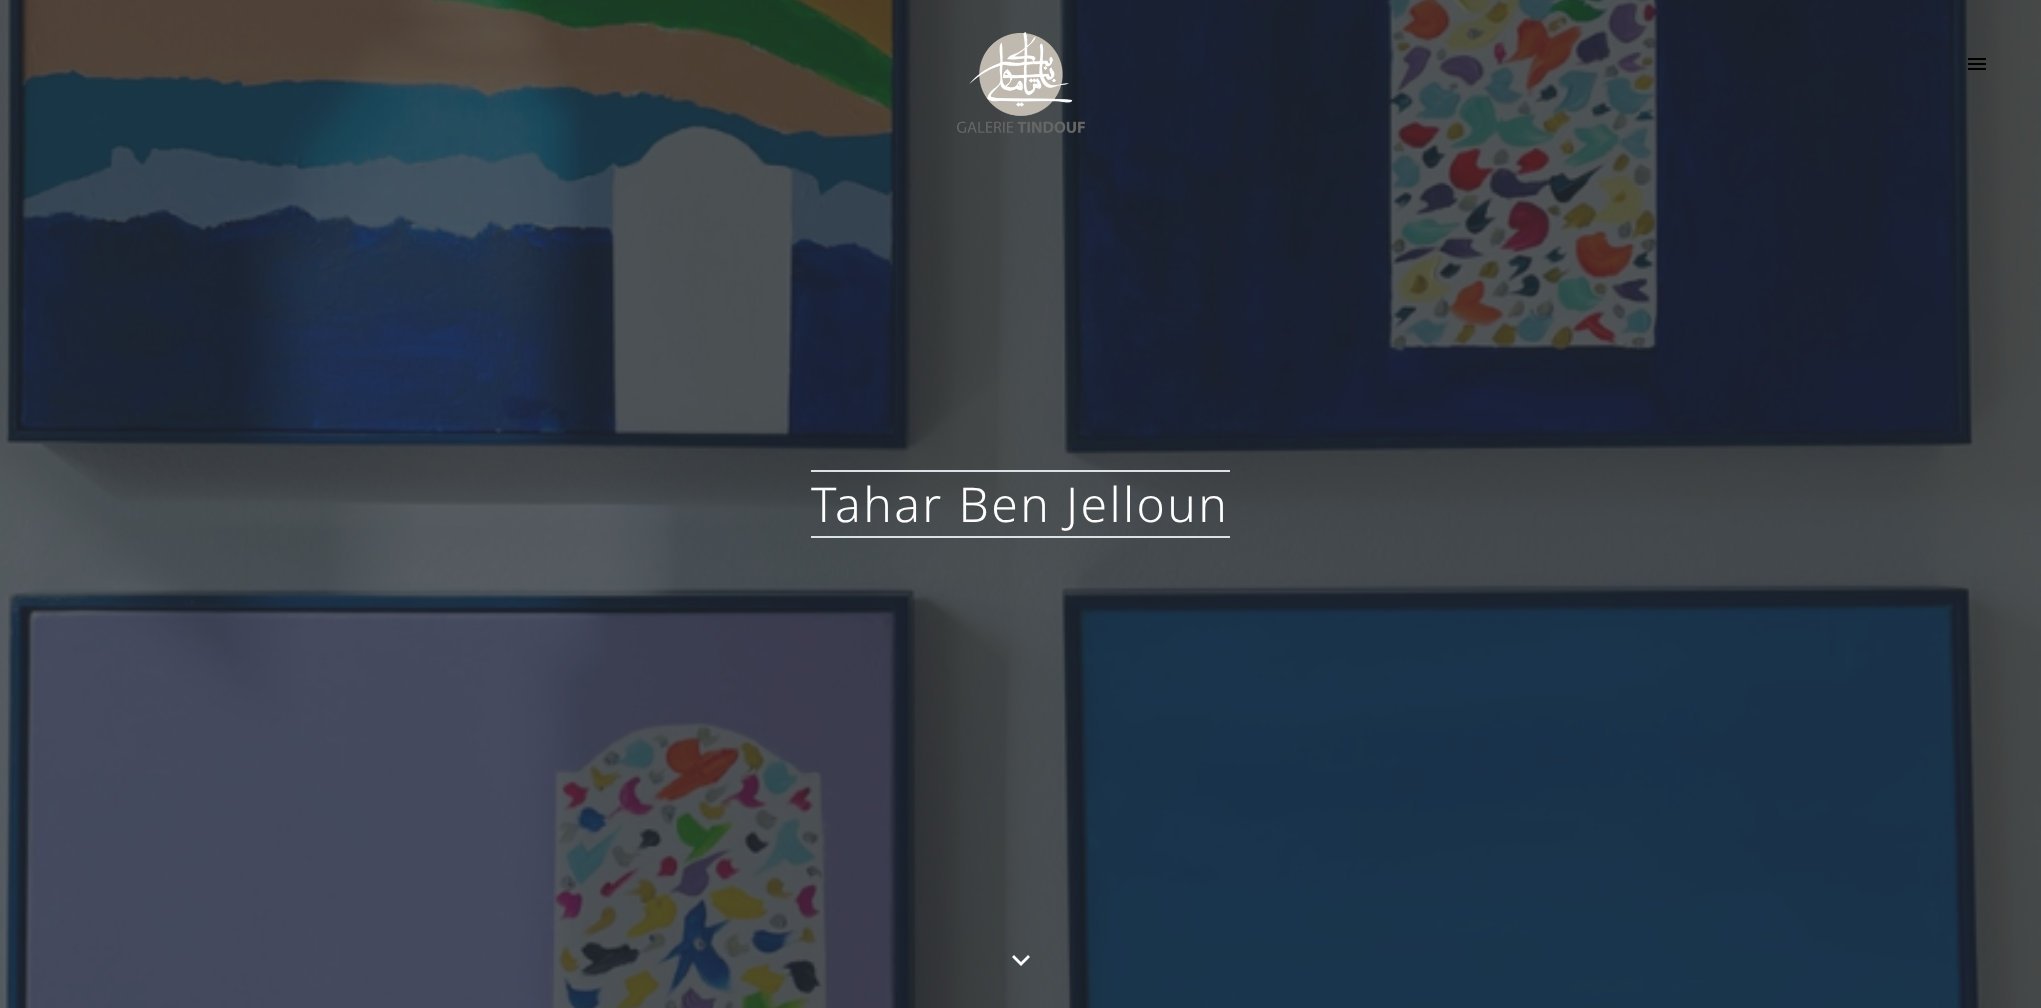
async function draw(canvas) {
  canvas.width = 2041
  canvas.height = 1008
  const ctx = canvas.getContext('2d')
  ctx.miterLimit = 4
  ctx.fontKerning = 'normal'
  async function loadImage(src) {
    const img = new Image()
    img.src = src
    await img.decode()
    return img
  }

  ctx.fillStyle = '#22292f'
  ctx.fillRect(0, 0, 2041, 1008)
  ctx.drawImage(await loadImage('image2.png'), 0, 0, 2041, 1008)
  ctx.drawImage(await loadImage('image0.png'), 957, 32, 128, 101)
  ctx.drawImage(await loadImage('image1.png'), 1968, 58, 18, 12)
  ctx.fillStyle = '#dae1e7'
  ctx.fillRect(811, 470, 419, 2)
  ctx.fillRect(811, 536, 419, 2)
  ctx.letterSpacing = '2.4px'
  ctx.font = '300 48px Noto Sans'
  ctx.fillStyle = '#fff'
  ctx.fillText('Tahar Ben Jelloun', 811, 522)
  ctx.beginPath()
  ctx.moveTo(1028, 955)
  ctx.lineTo(1030, 957)
  ctx.lineTo(1021, 966)
  ctx.lineTo(1012, 957)
  ctx.lineTo(1014, 955)
  ctx.lineTo(1021, 962)
  ctx.closePath()
  ctx.fill()
}

draw(document.querySelector('canvas'))
